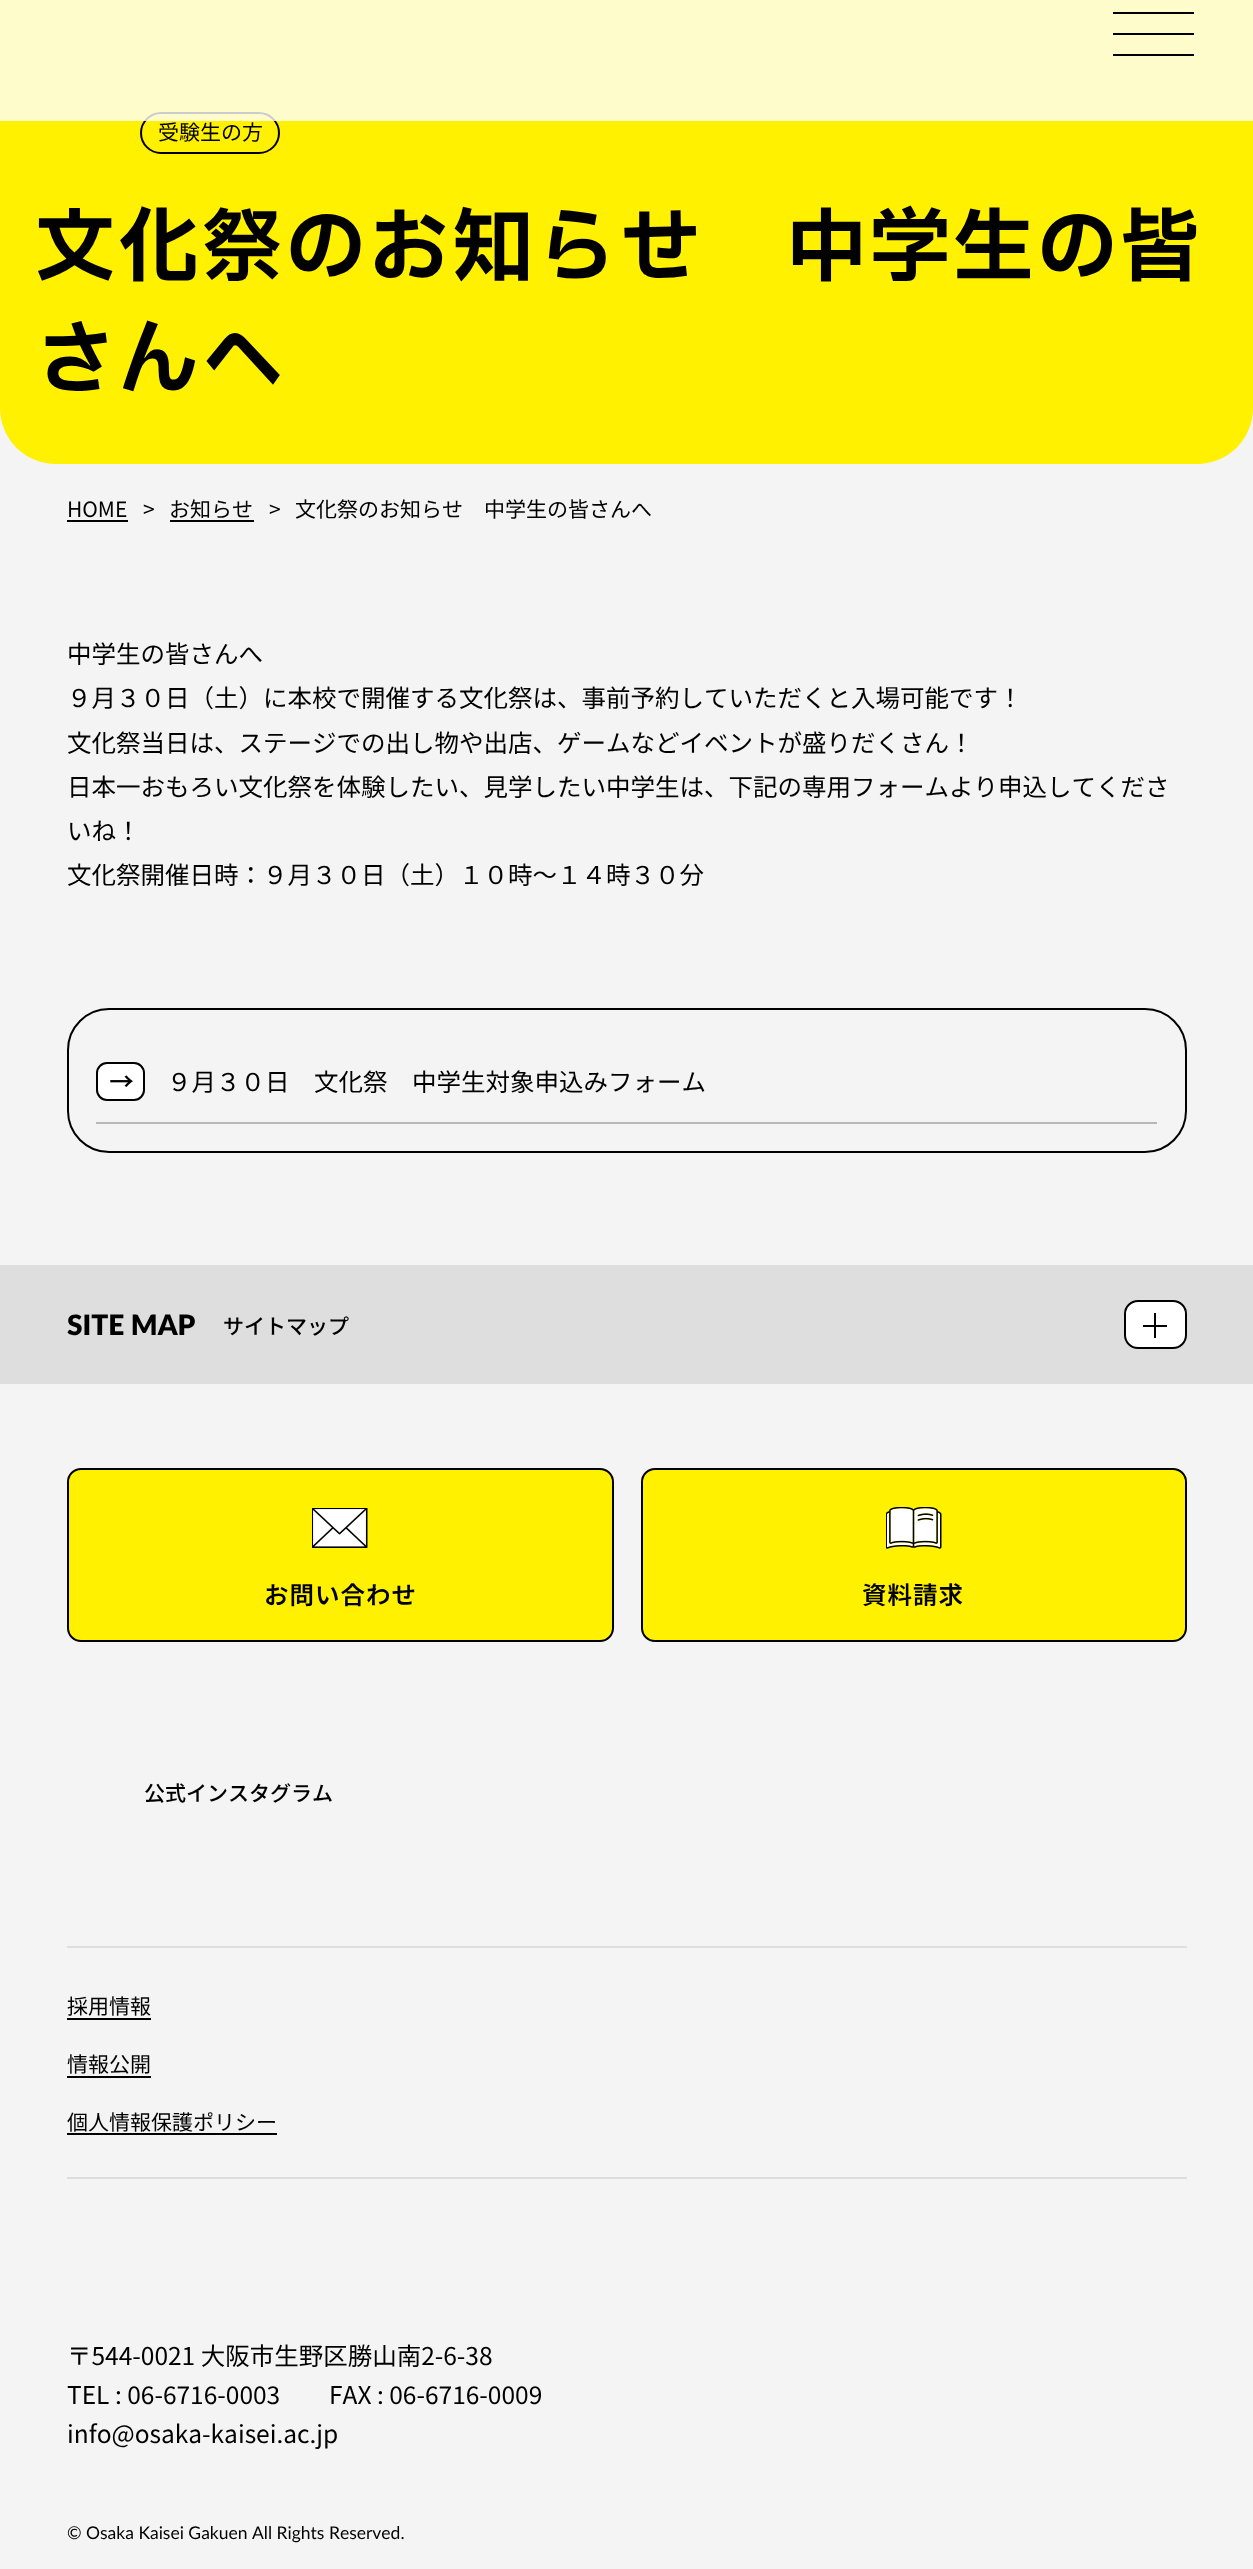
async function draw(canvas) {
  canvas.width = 1253
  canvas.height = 2569
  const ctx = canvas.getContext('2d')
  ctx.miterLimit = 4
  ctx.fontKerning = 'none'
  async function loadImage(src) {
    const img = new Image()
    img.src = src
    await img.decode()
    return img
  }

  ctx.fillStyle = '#f4f4f4'
  ctx.fillRect(0, 0, 1253, 2569)
  ctx.fillStyle = '#fff100'
  ctx.beginPath()
  ctx.moveTo(0, -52)
  ctx.lineTo(1253, -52)
  ctx.lineTo(1253, 408)
  ctx.bezierCurveTo(1253, 439, 1228, 464, 1197, 464)
  ctx.lineTo(56, 464)
  ctx.bezierCurveTo(25, 464, 0, 439, 0, 408)
  ctx.closePath()
  ctx.fill()
  ctx.beginPath()
  ctx.roundRect(141, 113, 138, 40, 20)
  ctx.strokeStyle = '#000'
  ctx.lineWidth = 2
  ctx.stroke()
  ctx.fillStyle = '#ffffffcc'
  ctx.fillRect(0, 0, 1253, 121)
  ctx.fillStyle = '#000'
  ctx.fillRect(1113, 33, 81, 2)
  ctx.fillRect(1113, 12, 81, 2)
  ctx.fillRect(1113, 54, 81, 2)
  ctx.font = '21px Noto Sans JP'
  ctx.fillText('受験生の方', 158, 140)
  ctx.letterSpacing = '3.25px'
  ctx.font = 'bold 80.25px IBM Plex Sans JP'
  ctx.fillText('文化祭のお知らせ　中学生の皆', 35, 275)
  ctx.fillText('さんへ', 35, 387)
  ctx.letterSpacing = '0px'
  ctx.font = '21px Noto Sans JP'
  ctx.fillText('HOME', 67, 517)
  ctx.fillRect(67, 520, 61, 2)
  ctx.fillText('>', 143, 517)
  ctx.fillText('お知らせ', 169, 517)
  ctx.fillRect(170, 520, 84, 2)
  ctx.fillText('>', 269, 517)
  ctx.fillText('文化祭のお知らせ　中学生の皆さんへ', 295, 517)
  ctx.font = '24.5px Noto Sans JP'
  ctx.fillText('中学生の皆さんへ', 67, 663)
  ctx.fillText('９月３０日（土）に本校で開催する文化祭は、事前予約していただくと入場可能です！', 67, 707)
  ctx.fillText('文化祭当日は、ステージでの出し物や出店、ゲームなどイベントが盛りだくさん！', 67, 752)
  ctx.fillText('日本一おもろい文化祭を体験したい、見学したい中学生は、下記の専用フォームより申込してくださ', 67, 796)
  ctx.fillText('いね！', 67, 840)
  ctx.fillText('文化祭開催日時：９月３０日（土）１０時～１４時３０分', 67, 884)
  ctx.beginPath()
  ctx.roundRect(68, 1009, 1118, 143, 41)
  ctx.stroke()
  ctx.fillStyle = '#fff'
  ctx.beginPath()
  ctx.roundRect(97, 1063, 47, 37, 10)
  ctx.fill()
  ctx.stroke()
  ctx.drawImage(await loadImage('image0.png'), 110, 1075, 23, 12)
  ctx.fillStyle = '#000'
  ctx.fillText('９月３０日　文化祭　中学生対象申込みフォーム', 167, 1091)
  ctx.fillStyle = '#b7b7b7'
  ctx.fillRect(96, 1122, 1061, 2)
  ctx.fillStyle = '#dedede'
  ctx.fillRect(0, 1265, 1253, 119)
  ctx.font = '800 28px Lato'
  ctx.fillStyle = '#000'
  ctx.fillText('SITE MAP', 67, 1335)
  ctx.font = '500 21px Noto Sans JP'
  ctx.fillText('サイトマップ', 223, 1334)
  ctx.fillStyle = '#fff'
  ctx.beginPath()
  ctx.roundRect(1125, 1301, 61, 47, 13)
  ctx.fill()
  ctx.stroke()
  ctx.fillStyle = '#000'
  ctx.fillRect(1143, 1325, 24, 2)
  ctx.fillRect(1154, 1313, 2, 25)
  ctx.fillStyle = '#fff100'
  ctx.beginPath()
  ctx.roundRect(68, 1469, 545, 172, 13)
  ctx.fill()
  ctx.stroke()
  ctx.drawImage(await loadImage('image1.png'), 312, 1508, 56, 40)
  ctx.letterSpacing = '1px'
  ctx.font = '600 24.5px Noto Sans JP'
  ctx.fillStyle = '#000'
  ctx.fillText('お問い合わせ', 264, 1604)
  ctx.fillStyle = '#fff100'
  ctx.beginPath()
  ctx.roundRect(642, 1469, 544, 172, 13)
  ctx.fill()
  ctx.stroke()
  ctx.drawImage(await loadImage('image2.png'), 886, 1507, 56, 42)
  ctx.fillStyle = '#000'
  ctx.fillText('資料請求', 862, 1604)
  ctx.letterSpacing = '0px'
  ctx.font = '500 21px Noto Sans JP'
  ctx.fillText('公式インスタグラム', 144, 1801)
  ctx.fillStyle = '#dedede'
  ctx.fillRect(67, 1946, 1120, 2)
  ctx.fillRect(67, 2177, 1120, 2)
  ctx.font = '21px Noto Sans JP'
  ctx.fillStyle = '#000'
  ctx.fillText('採用情報', 67, 2014)
  ctx.fillRect(67, 2018, 84, 2)
  ctx.fillText('情報公開', 67, 2072)
  ctx.fillRect(67, 2076, 84, 2)
  ctx.fillText('個人情報保護ポリシー', 67, 2130)
  ctx.fillRect(67, 2133, 210, 2)
  ctx.font = '24.5px Noto Sans JP'
  ctx.fillText('〒544-0021 大阪市生野区勝山南2-6-38', 67, 2365)
  ctx.fillText('TEL : 06-6716-0003', 67, 2404)
  ctx.fillText('FAX : 06-6716-0009', 329, 2404)
  ctx.fillText('info@osaka-kaisei.ac.jp', 67, 2443)
  ctx.font = '17.5px Lato'
  ctx.fillText('© Osaka Kaisei Gakuen All Rights Reserved.', 67, 2539)
}

draw(document.querySelector('canvas'))
